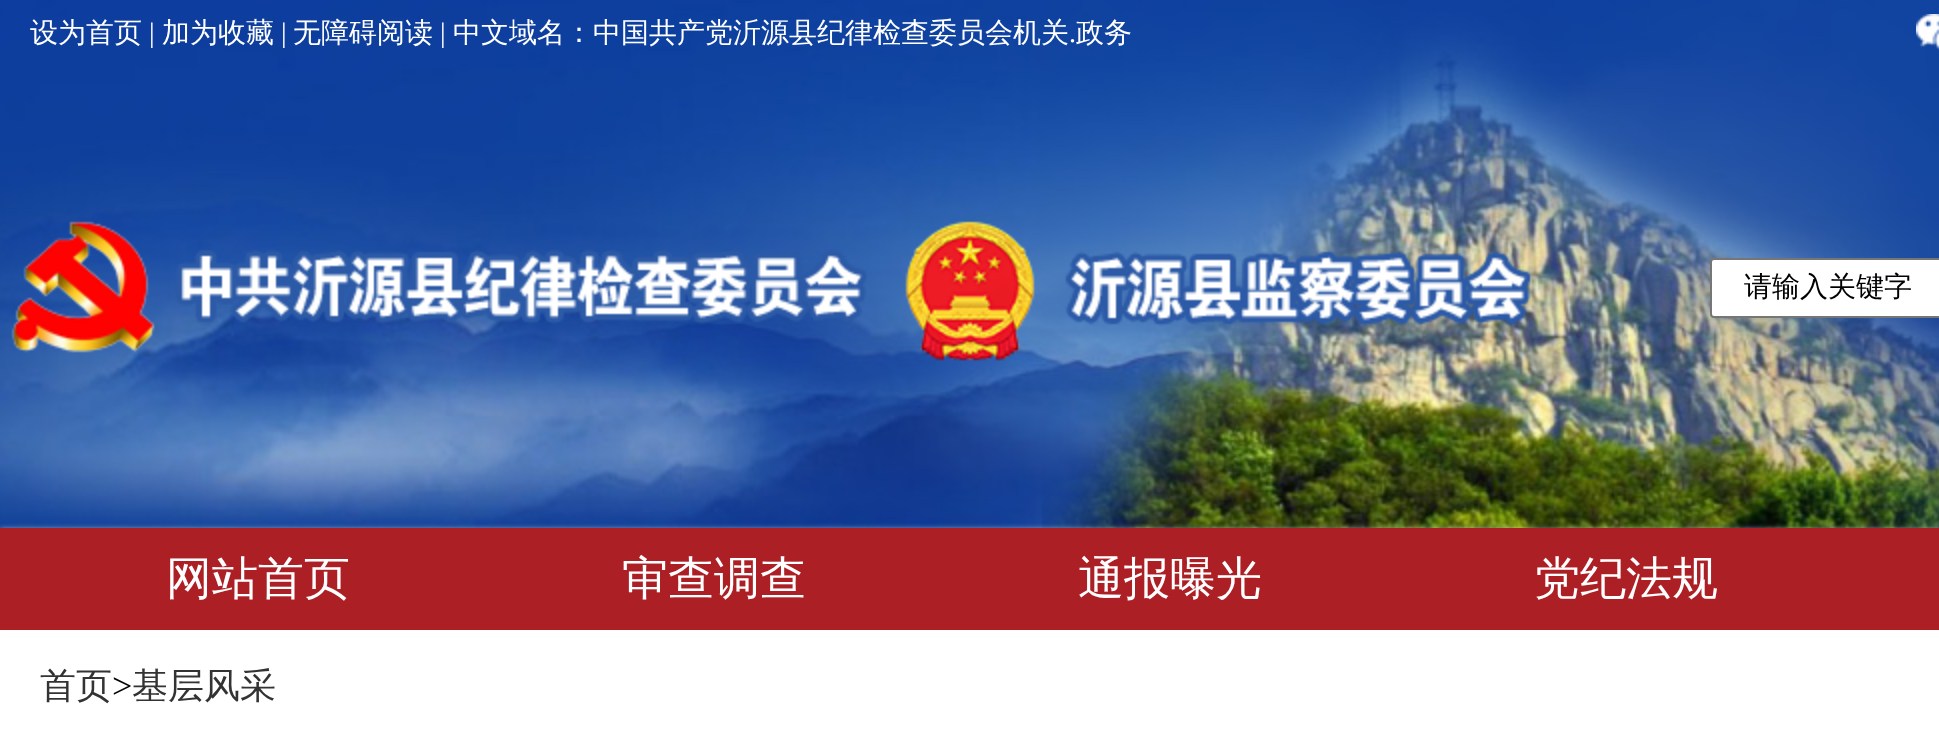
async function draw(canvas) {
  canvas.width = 1939
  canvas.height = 750
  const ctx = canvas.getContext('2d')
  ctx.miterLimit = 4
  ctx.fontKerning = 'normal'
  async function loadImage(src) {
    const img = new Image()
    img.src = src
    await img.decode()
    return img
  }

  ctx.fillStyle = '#fff'
  ctx.fillRect(0, 0, 1939, 750)
  ctx.drawImage(await loadImage('image0.png'), 0, 0, 1939, 528)
  ctx.font = '500 28px WenQuanYi Zen Hei'
  ctx.fillText('设为首页', 30, 42)
  ctx.font = '28px Liberation Serif'
  ctx.fillText('|', 149, 42)
  ctx.font = '500 28px WenQuanYi Zen Hei'
  ctx.fillText('加为收藏', 162, 42)
  ctx.font = '28px Liberation Serif'
  ctx.fillText('|', 281, 42)
  ctx.font = '500 28px WenQuanYi Zen Hei'
  ctx.fillText('无障碍阅读', 293, 42)
  ctx.font = '28px Liberation Serif'
  ctx.fillText('|', 440, 42)
  ctx.font = '500 28px WenQuanYi Zen Hei'
  ctx.fillText('中文域名：中国共产党沂源县纪律检查委员会机关', 453, 42)
  ctx.font = '28px Liberation Serif'
  ctx.fillText('.', 1069, 42)
  ctx.font = '500 28px WenQuanYi Zen Hei'
  ctx.fillText('政务', 1076, 42)
  ctx.drawImage(await loadImage('image1.png'), 1916, 14, 23, 37)
  ctx.drawImage(await loadImage('image2.png'), 11, 221, 856, 132)
  ctx.drawImage(await loadImage('image3.png'), 905, 221, 628, 140)
  ctx.beginPath()
  ctx.roundRect(1711, 259, 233, 58, 3)
  ctx.fill()
  ctx.strokeStyle = '#767676'
  ctx.lineWidth = 2
  ctx.stroke()
  ctx.fillStyle = '#000'
  ctx.fillText('请输入关键字', 1744, 296)
  ctx.fillStyle = '#e9e9e9'
  ctx.filter = 'blur(3px)'
  ctx.beginPath()
  ctx.rect(0, 530, 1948, 102)
  ctx.fill()
  ctx.filter = 'none'
  ctx.fillStyle = '#ac1f25'
  ctx.fillRect(0, 528, 1939, 102)
  ctx.font = '500 46px WenQuanYi Zen Hei'
  ctx.fillStyle = '#fff'
  ctx.fillText('网站首页', 166, 594)
  ctx.fillText('审查调查', 622, 594)
  ctx.fillText('通报曝光', 1078, 594)
  ctx.fillText('党纪法规', 1534, 594)
  ctx.fillRect(0, 630, 1939, 6)
  ctx.font = '500 36px WenQuanYi Zen Hei'
  ctx.fillStyle = '#333'
  ctx.fillText('首页', 40, 698)
  ctx.font = '36px Liberation Serif'
  ctx.fillStyle = '#000'
  ctx.fillText('>', 112, 698)
  ctx.font = '500 36px WenQuanYi Zen Hei'
  ctx.fillStyle = '#333'
  ctx.fillText('基层风采', 132, 698)
}

draw(document.querySelector('canvas'))
